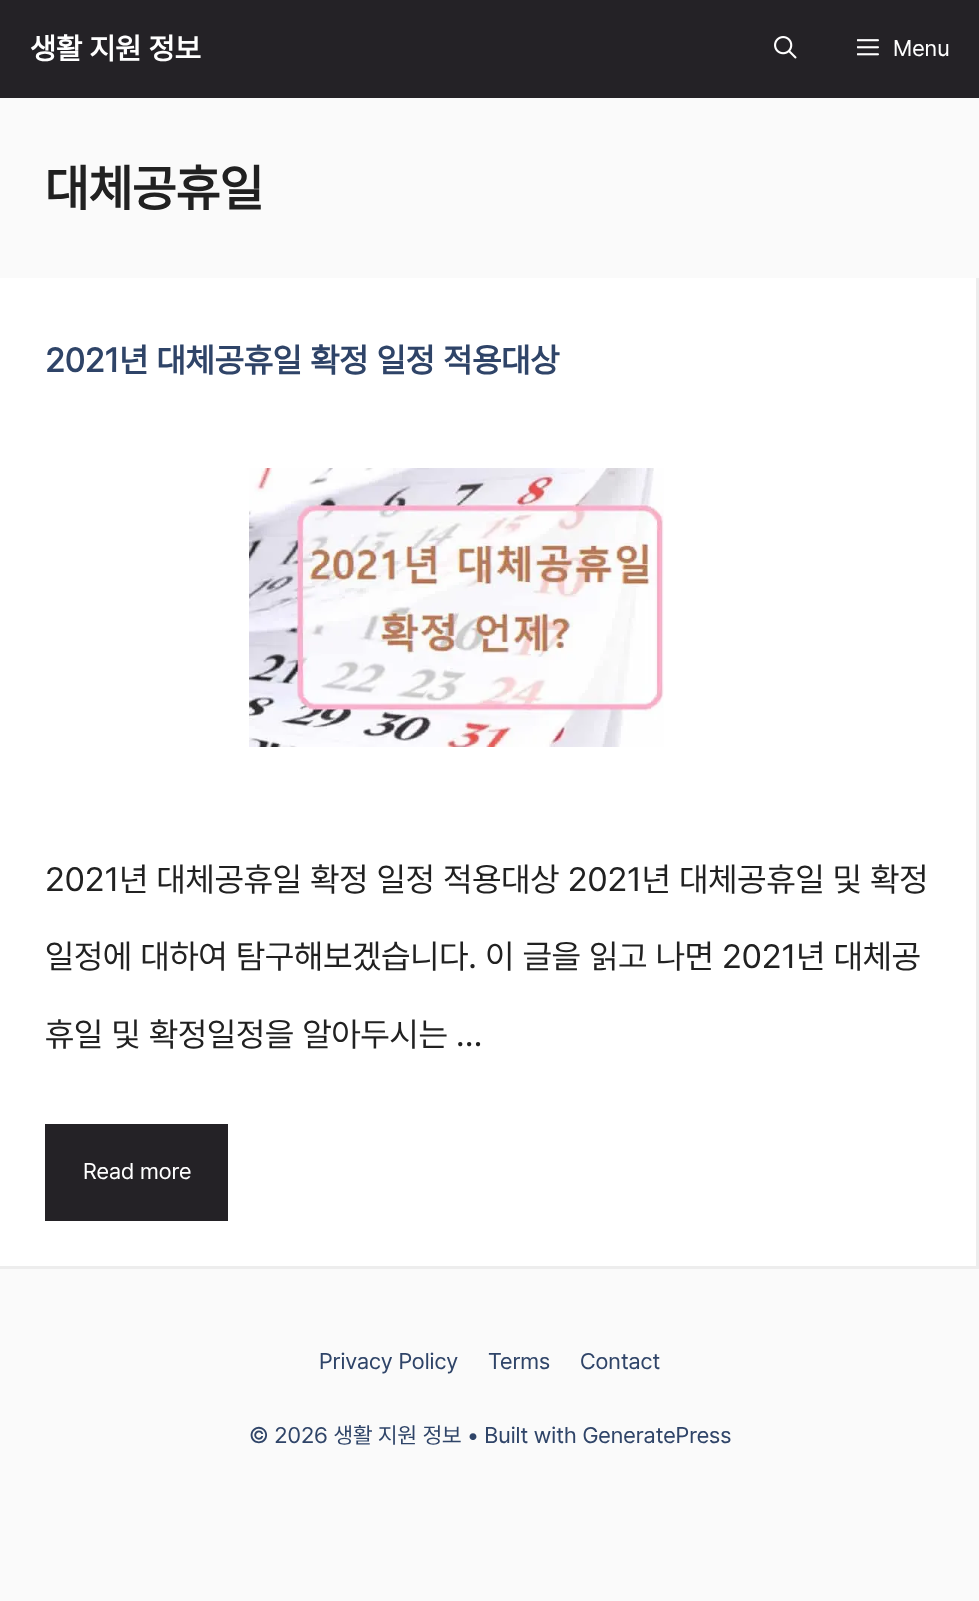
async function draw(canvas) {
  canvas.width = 979
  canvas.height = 1601
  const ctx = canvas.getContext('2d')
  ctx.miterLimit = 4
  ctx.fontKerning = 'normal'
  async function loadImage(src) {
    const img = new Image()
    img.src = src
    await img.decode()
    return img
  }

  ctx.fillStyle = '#fafafa'
  ctx.fillRect(0, 0, 979, 1601)
  ctx.fillStyle = '#242226'
  ctx.fillRect(0, 0, 979, 98)
  ctx.font = 'bold 30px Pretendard'
  ctx.fillStyle = '#fff'
  ctx.fillText('생활 지원 정보', 30, 59)
  ctx.drawImage(await loadImage('image0.png'), 774, 36, 23, 23)
  ctx.drawImage(await loadImage('image1.png'), 857, 39, 22, 17)
  ctx.font = '22.5px Pretendard'
  ctx.fillText('Menu', 893, 56)
  ctx.font = 'bold 50.5px Pretendard'
  ctx.fillStyle = '#212121'
  ctx.fillText('대체공휴일', 45, 206)
  ctx.fillStyle = '#fff'
  ctx.fillRect(0, 278, 979, 991)
  ctx.fillStyle = '#ededed'
  ctx.beginPath()
  ctx.moveTo(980, 278)
  ctx.lineTo(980, 1269)
  ctx.lineTo(976, 1266)
  ctx.lineTo(976, 278)
  ctx.closePath()
  ctx.fill()
  ctx.fillStyle = '#00000012'
  ctx.beginPath()
  ctx.moveTo(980, 1269)
  ctx.lineTo(0, 1269)
  ctx.lineTo(0, 1266)
  ctx.lineTo(976, 1266)
  ctx.closePath()
  ctx.fill()
  ctx.font = 'bold 33.6px Pretendard'
  ctx.fillStyle = '#2f4468'
  ctx.fillText('2021년 대체공휴일 확정 일정 적용대상', 45, 372)
  ctx.drawImage(await loadImage('image2.png'), 249, 468, 415, 279)
  ctx.font = '33.6px Pretendard'
  ctx.fillStyle = '#212121'
  ctx.fillText('2021년 대체공휴일 확정 일정 적용대상 2021년 대체공휴일 및 확정', 45, 891)
  ctx.fillText('일정에 대하여 탐구해보겠습니다. 이 글을 읽고 나면 2021년 대체공', 45, 968)
  ctx.fillText('휴일 및 확정일정을 알아두시는 …', 45, 1046)
  ctx.fillStyle = '#242226'
  ctx.fillRect(45, 1124, 183, 97)
  ctx.font = '22.5px Pretendard'
  ctx.fillStyle = '#fff'
  ctx.fillText('Read more', 83, 1179)
  ctx.fillStyle = '#2f4468'
  ctx.fillText('Privacy Policy', 319, 1369)
  ctx.fillText('Terms', 488, 1369)
  ctx.fillText('Contact', 580, 1369)
  ctx.fillText('© 2026 생활 지원 정보 • Built with GeneratePress', 249, 1443)
}

draw(document.querySelector('canvas'))
